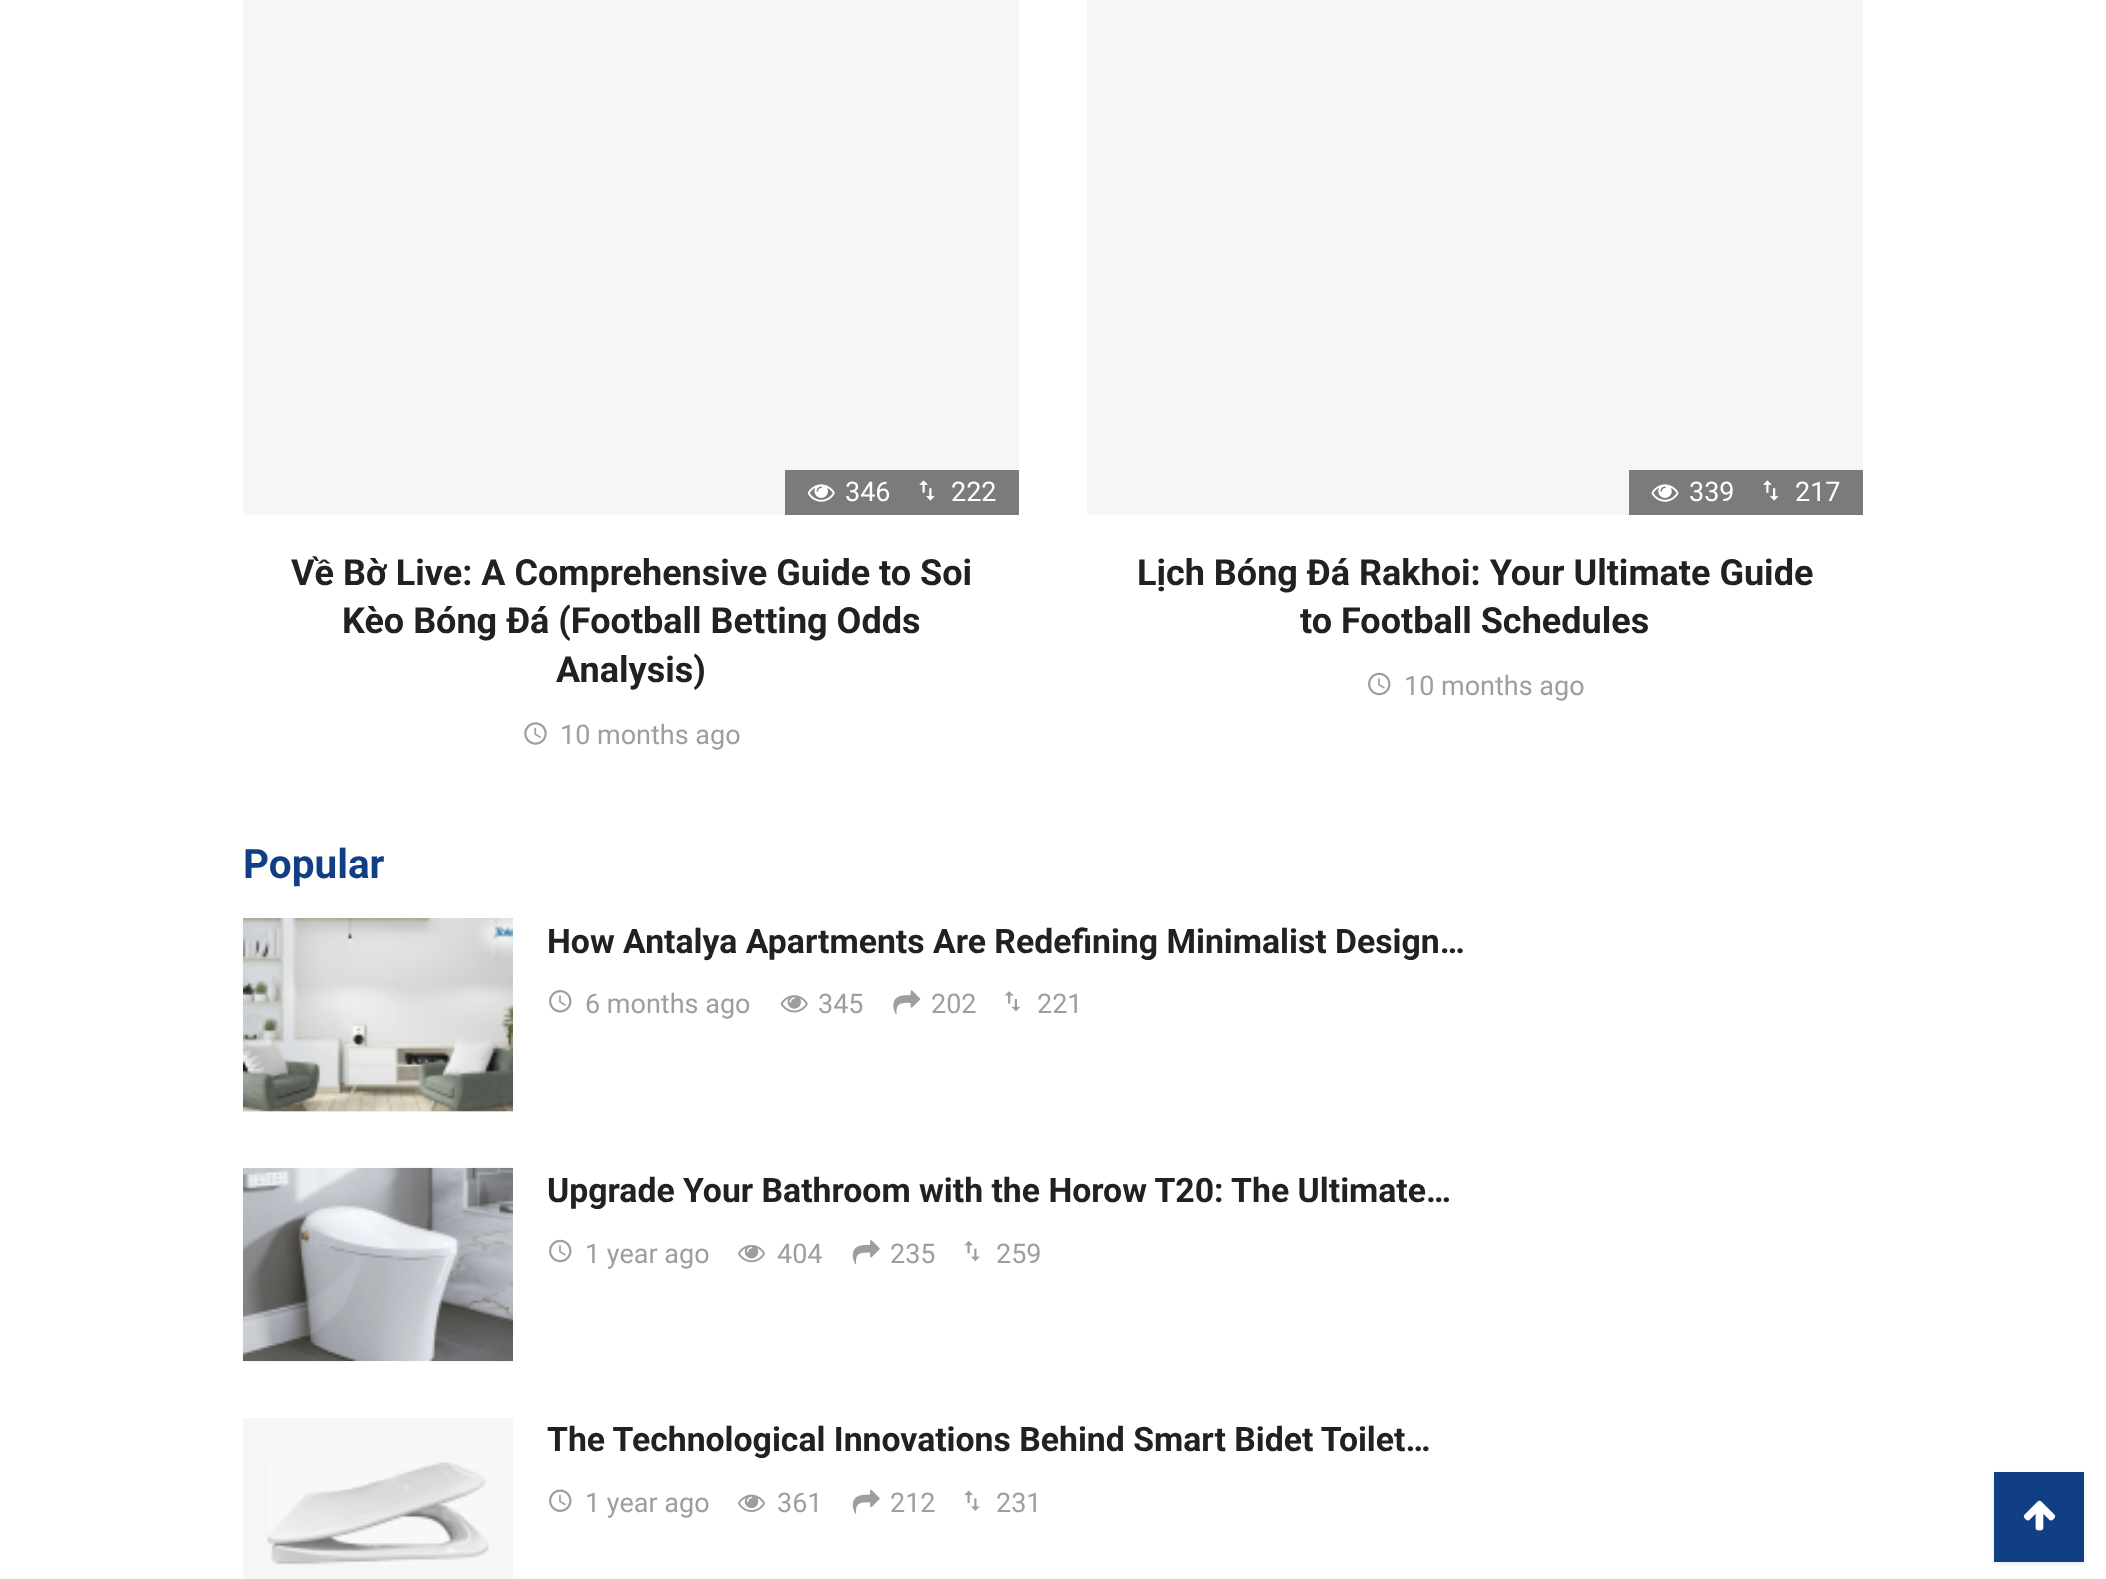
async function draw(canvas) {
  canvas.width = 2106
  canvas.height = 1579
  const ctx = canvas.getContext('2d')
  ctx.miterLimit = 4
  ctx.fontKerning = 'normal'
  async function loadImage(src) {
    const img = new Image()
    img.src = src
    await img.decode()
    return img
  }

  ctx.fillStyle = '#fff'
  ctx.fillRect(0, 0, 2106, 1579)
  ctx.fillStyle = '#f6f6f6'
  ctx.fillRect(243, 0, 776, 515)
  ctx.fillStyle = '#7b7b7b'
  ctx.fillRect(785, 470, 234, 45)
  ctx.drawImage(await loadImage('image0.png'), 807, 484, 28, 18)
  ctx.font = '27px Roboto'
  ctx.fillStyle = '#fff'
  ctx.fillText('346', 845, 501)
  ctx.drawImage(await loadImage('image1.png'), 919, 480, 16, 21)
  ctx.fillText('222', 951, 501)
  ctx.font = 'bold 36px Roboto'
  ctx.fillStyle = '#212121'
  ctx.fillText('Về Bờ Live: A Comprehensive Guide to Soi', 291, 585)
  ctx.fillText('Kèo Bóng Đá (Football Betting Odds', 342, 633)
  ctx.fillText('Analysis)', 556, 682)
  ctx.drawImage(await loadImage('image2.png'), 524, 722, 23, 23)
  ctx.font = '27px Roboto'
  ctx.fillStyle = '#9e9e9e'
  ctx.fillText('10 months ago', 560, 744)
  ctx.fillStyle = '#f6f6f6'
  ctx.fillRect(1087, 0, 776, 515)
  ctx.fillStyle = '#7b7b7b'
  ctx.fillRect(1629, 470, 234, 45)
  ctx.drawImage(await loadImage('image3.png'), 1651, 484, 28, 18)
  ctx.fillStyle = '#fff'
  ctx.fillText('339', 1689, 501)
  ctx.drawImage(await loadImage('image4.png'), 1763, 480, 16, 21)
  ctx.fillText('217', 1795, 501)
  ctx.font = 'bold 36px Roboto'
  ctx.fillStyle = '#212121'
  ctx.fillText('Lịch Bóng Đá Rakhoi: Your Ultimate Guide', 1137, 585)
  ctx.fillText('to Football Schedules', 1300, 633)
  ctx.drawImage(await loadImage('image5.png'), 1368, 672, 23, 24)
  ctx.font = '27px Roboto'
  ctx.fillStyle = '#9e9e9e'
  ctx.fillText('10 months ago', 1404, 695)
  ctx.font = 'bold 40.5px Roboto'
  ctx.fillStyle = '#113f84'
  ctx.fillText('Popular', 243, 878)
  ctx.fillStyle = '#f6f6f6'
  ctx.fillRect(243, 1111, 270, 1)
  ctx.drawImage(await loadImage('image6.png'), 243, 918, 270, 194)
  ctx.font = 'bold 33.75px Roboto'
  ctx.fillStyle = '#212121'
  ctx.fillText('How Antalya Apartments Are Redefining Minimalist Design…', 547, 953)
  ctx.drawImage(await loadImage('image7.png'), 549, 990, 23, 23)
  ctx.font = '27px Roboto'
  ctx.fillStyle = '#9e9e9e'
  ctx.fillText('6 months ago', 585, 1013)
  ctx.drawImage(await loadImage('image8.png'), 780, 995, 28, 18)
  ctx.fillText('345', 818, 1013)
  ctx.drawImage(await loadImage('image9.png'), 893, 990, 28, 25)
  ctx.fillText('202', 931, 1013)
  ctx.drawImage(await loadImage('image10.png'), 1004, 991, 16, 21)
  ctx.fillText('221', 1037, 1013)
  ctx.drawImage(await loadImage('image11.png'), 243, 1167, 270, 195)
  ctx.font = 'bold 33.75px Roboto'
  ctx.fillStyle = '#212121'
  ctx.fillText('Upgrade Your Bathroom with the Horow T20: The Ultimate…', 547, 1202)
  ctx.drawImage(await loadImage('image5.png'), 549, 1239, 23, 24)
  ctx.font = '27px Roboto'
  ctx.fillStyle = '#9e9e9e'
  ctx.fillText('1 year ago', 585, 1263)
  ctx.drawImage(await loadImage('image12.png'), 738, 1244, 27, 19)
  ctx.fillText('404', 777, 1263)
  ctx.drawImage(await loadImage('image13.png'), 852, 1240, 28, 25)
  ctx.fillText('235', 890, 1263)
  ctx.drawImage(await loadImage('image14.png'), 964, 1241, 16, 20)
  ctx.fillText('259', 996, 1263)
  ctx.fillStyle = '#f6f6f6'
  ctx.fillRect(243, 1418, 270, 161)
  ctx.drawImage(await loadImage('image15.png'), 267, 1462, 222, 103)
  ctx.font = 'bold 33.75px Roboto'
  ctx.fillStyle = '#212121'
  ctx.fillText('The Technological Innovations Behind Smart Bidet Toilet…', 547, 1451)
  ctx.drawImage(await loadImage('image16.png'), 549, 1489, 23, 23)
  ctx.font = '27px Roboto'
  ctx.fillStyle = '#9e9e9e'
  ctx.fillText('1 year ago', 585, 1512)
  ctx.drawImage(await loadImage('image17.png'), 738, 1494, 27, 18)
  ctx.fillText('361', 777, 1512)
  ctx.drawImage(await loadImage('image18.png'), 852, 1489, 28, 25)
  ctx.fillText('212', 890, 1512)
  ctx.drawImage(await loadImage('image19.png'), 964, 1490, 16, 21)
  ctx.fillText('231', 996, 1512)
  ctx.fillStyle = '#00000017'
  ctx.filter = 'blur(2px)'
  ctx.beginPath()
  ctx.rect(1994, 1474, 90, 90)
  ctx.fill()
  ctx.filter = 'none'
  ctx.fillStyle = '#113f84'
  ctx.fillRect(1994, 1472, 90, 90)
  ctx.drawImage(await loadImage('image20.png'), 2023, 1500, 33, 31)
}

draw(document.querySelector('canvas'))
